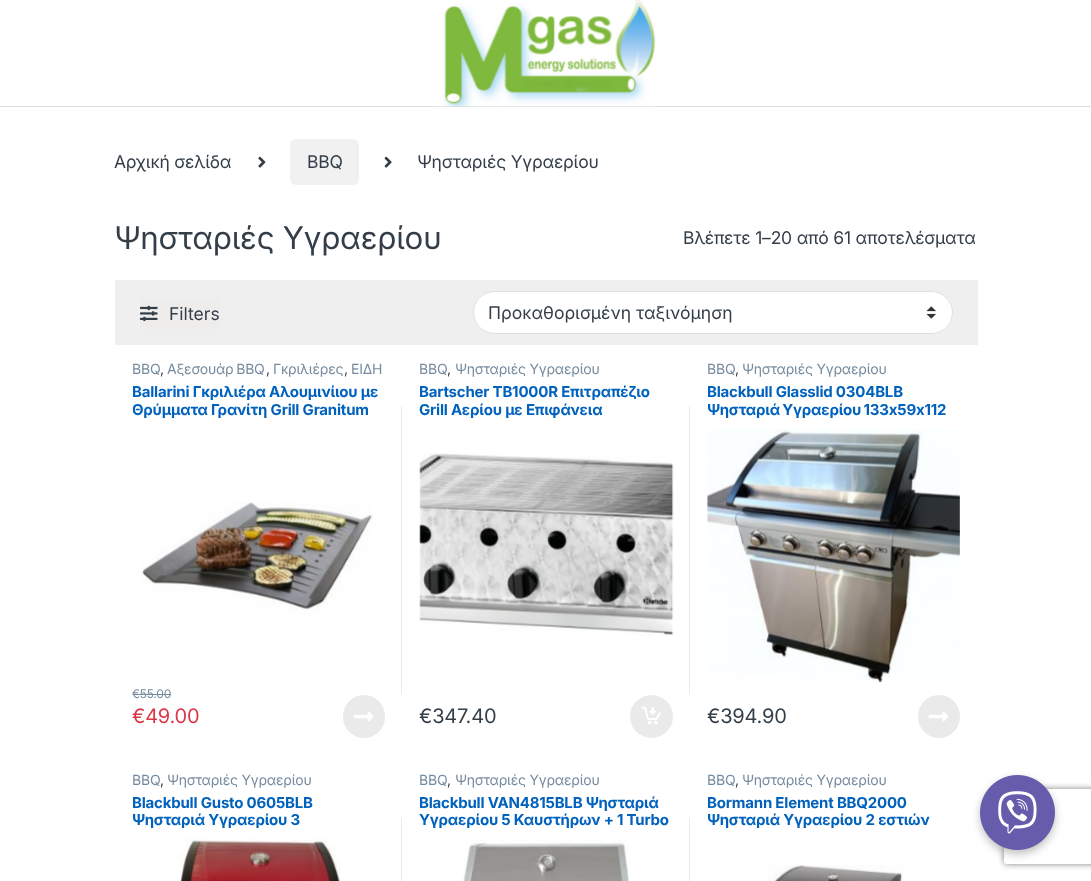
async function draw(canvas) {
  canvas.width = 1091
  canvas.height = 881
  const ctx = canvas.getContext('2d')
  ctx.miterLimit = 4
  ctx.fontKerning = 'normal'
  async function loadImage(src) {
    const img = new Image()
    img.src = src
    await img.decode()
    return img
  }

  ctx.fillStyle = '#fff'
  ctx.fillRect(0, 0, 1091, 881)
  ctx.fillStyle = '#ddd'
  ctx.fillRect(0, 106, 1091, 1)
  ctx.drawImage(await loadImage('image0.png'), 435, 0, 221, 107)
  ctx.letterSpacing = '-0.2px'
  ctx.font = '17.5px Inter'
  ctx.fillStyle = '#333e48'
  ctx.fillText('Αρχική σελίδα', 114, 168)
  ctx.drawImage(await loadImage('image1.png'), 258, 156, 8, 12)
  ctx.fillStyle = '#f1f1f1'
  ctx.beginPath()
  ctx.roundRect(290, 139, 69, 46, 6)
  ctx.fill()
  ctx.fillStyle = '#333e48'
  ctx.fillText('BBQ', 307, 168)
  ctx.drawImage(await loadImage('image2.png'), 384, 156, 8, 12)
  ctx.fillText('Ψησταριές Υγραερίου', 417, 168)
  ctx.font = '31.25px Inter'
  ctx.fillText('Ψησταριές Υγραερίου', 114, 249)
  ctx.font = '17.5px Inter'
  ctx.fillText('Βλέπετε 1–20 από 61 αποτελέσματα', 683, 244)
  ctx.fillStyle = '#efefef'
  ctx.fillRect(115, 280, 863, 65)
  ctx.fillStyle = '#efecec'
  ctx.fillRect(140, 299, 80, 30)
  ctx.drawImage(await loadImage('image3.png'), 140, 305, 18, 17)
  ctx.letterSpacing = '0px'
  ctx.fillStyle = '#333e48'
  ctx.fillText('Filters', 169, 320)
  ctx.fillStyle = '#fff'
  ctx.beginPath()
  ctx.roundRect(473, 291, 480, 43, 21.5)
  ctx.fill()
  ctx.drawImage(await loadImage('image4.png'), 926, 306, 11, 13)
  ctx.beginPath()
  ctx.roundRect(473.5, 291.5, 479, 42, 21)
  ctx.strokeStyle = '#ddd'
  ctx.stroke()
  ctx.fillStyle = '#333e48'
  ctx.fillText('Προκαθορισμένη ταξινόμηση', 488, 319)
  ctx.letterSpacing = '-0.2px'
  ctx.font = '14px Inter'
  ctx.fillStyle = '#768b9e'
  ctx.fillText('BBQ', 132, 374)
  ctx.wordSpacing = '-1px'
  ctx.fillText('Αξεσουάρ BBQ', 167, 374)
  ctx.wordSpacing = '0px'
  ctx.fillText('Γκριλιέρες', 273, 374)
  ctx.fillText('ΕΙΔΗ', 351, 374)
  ctx.fillStyle = '#333e48'
  ctx.fillText(',', 160, 374)
  ctx.fillText(',', 266, 374)
  ctx.fillText(',', 344, 374)
  ctx.save()
  ctx.beginPath()
  ctx.rect(133, 384, 252, 35)
  ctx.clip()
  ctx.font = 'bold 15px Inter'
  ctx.fillStyle = '#0062bd'
  ctx.fillText('Ballarini Γκριλιέρα Αλουμινίιου με', 132, 397)
  ctx.fillText('Θρύμματα Γρανίτη Grill Granitum', 132, 415)
  ctx.restore()
  ctx.drawImage(await loadImage('image5.png'), 140, 502, 233, 115)
  ctx.font = '12px Inter'
  ctx.fillStyle = '#768b9e'
  ctx.fillText('€55.00', 132, 698)
  ctx.fillRect(133, 694, 38, 1)
  ctx.font = '20px Inter'
  ctx.fillStyle = '#dc3545'
  ctx.fillText('€49.00', 132, 723)
  ctx.fillStyle = '#eaeaea'
  ctx.beginPath()
  ctx.roundRect(343, 695, 42, 43, 21)
  ctx.fill()
  ctx.drawImage(await loadImage('image6.png'), 353, 711, 21, 11)
  ctx.fillRect(401, 406, 1, 288)
  ctx.font = '14px Inter'
  ctx.fillStyle = '#768b9e'
  ctx.fillText('BBQ', 419, 374)
  ctx.fillStyle = '#333e48'
  ctx.fillText(',', 447, 374)
  ctx.fillStyle = '#768b9e'
  ctx.fillText('Ψησταριές Υγραερίου', 455, 374)
  ctx.font = 'bold 15px Inter'
  ctx.fillStyle = '#0062bd'
  ctx.fillText('Bartscher ΤΒ1000R Επιτραπέζιο', 419, 397)
  ctx.fillText('Grill Αερίου με Επιφάνεια', 419, 415)
  ctx.drawImage(await loadImage('image7.png'), 419, 453, 255, 183)
  ctx.font = '20px Inter'
  ctx.fillStyle = '#333e48'
  ctx.fillText('€347.40', 419, 723)
  ctx.fillStyle = '#eaeaea'
  ctx.beginPath()
  ctx.arc(651.5, 716.5, 21.5, 0, 2 * Math.PI)
  ctx.fill()
  ctx.drawImage(await loadImage('image8.png'), 641, 706, 20, 19)
  ctx.fillRect(689, 406, 1, 288)
  ctx.font = '14px Inter'
  ctx.fillStyle = '#768b9e'
  ctx.fillText('BBQ', 707, 374)
  ctx.fillStyle = '#333e48'
  ctx.fillText(',', 735, 374)
  ctx.fillStyle = '#768b9e'
  ctx.fillText('Ψησταριές Υγραερίου', 742, 374)
  ctx.save()
  ctx.beginPath()
  ctx.rect(708, 384, 252, 35)
  ctx.clip()
  ctx.font = 'bold 15px Inter'
  ctx.fillStyle = '#0062bd'
  ctx.fillText('Blackbull Glasslid 0304BLB', 707, 397)
  ctx.wordSpacing = '-1px'
  ctx.fillText('Ψησταριά Υγραερίου 133x59x112', 707, 415)
  ctx.restore()
  ctx.drawImage(await loadImage('image9.png'), 707, 429, 253, 253)
  ctx.font = '20px Inter'
  ctx.fillStyle = '#333e48'
  ctx.fillText('€394.90', 707, 723)
  ctx.fillStyle = '#eaeaea'
  ctx.beginPath()
  ctx.roundRect(918, 695, 42, 43, 21)
  ctx.fill()
  ctx.drawImage(await loadImage('image6.png'), 928, 711, 21, 11)
  ctx.font = '14px Inter'
  ctx.fillStyle = '#768b9e'
  ctx.fillText('BBQ', 132, 785)
  ctx.fillStyle = '#333e48'
  ctx.fillText(',', 160, 785)
  ctx.fillStyle = '#768b9e'
  ctx.fillText('Ψησταριές Υγραερίου', 167, 785)
  ctx.save()
  ctx.beginPath()
  ctx.rect(133, 794, 252, 35)
  ctx.clip()
  ctx.font = 'bold 15px Inter'
  ctx.fillStyle = '#0062bd'
  ctx.fillText('Blackbull Gusto 0605BLB', 132, 808)
  ctx.fillText('Ψησταριά Υγραερίου 3', 132, 825)
  ctx.restore()
  ctx.drawImage(await loadImage('image10.png'), 179, 839, 162, 42)
  ctx.fillStyle = '#eaeaea'
  ctx.fillRect(401, 818, 1, 63)
  ctx.fillStyle = '#768b9e'
  ctx.fillText('BBQ', 419, 785)
  ctx.fillStyle = '#333e48'
  ctx.fillText(',', 447, 785)
  ctx.fillStyle = '#768b9e'
  ctx.fillText('Ψησταριές Υγραερίου', 455, 785)
  ctx.font = 'bold 15px Inter'
  ctx.fillStyle = '#0062bd'
  ctx.fillText('Blackbull VAN4815BLB Ψησταριά', 419, 808)
  ctx.fillText('Υγραερίου 5 Καυστήρων + 1 Turbo', 419, 825)
  ctx.drawImage(await loadImage('image11.png'), 463, 839, 167, 42)
  ctx.fillStyle = '#eaeaea'
  ctx.fillRect(689, 818, 1, 63)
  ctx.font = '14px Inter'
  ctx.fillStyle = '#768b9e'
  ctx.fillText('BBQ', 707, 785)
  ctx.fillStyle = '#333e48'
  ctx.fillText(',', 735, 785)
  ctx.fillStyle = '#768b9e'
  ctx.fillText('Ψησταριές Υγραερίου', 742, 785)
  ctx.save()
  ctx.beginPath()
  ctx.rect(708, 794, 252, 35)
  ctx.clip()
  ctx.font = 'bold 15px Inter'
  ctx.fillStyle = '#0062bd'
  ctx.fillText('Bormann Element BBQ2000', 707, 808)
  ctx.fillText('Ψησταριά Υγραερίου 2 εστιών', 707, 825)
  ctx.restore()
  ctx.drawImage(await loadImage('image12.png'), 768, 865, 135, 16)
  ctx.fillStyle = '#00000040'
  ctx.filter = 'blur(4px)'
  ctx.beginPath()
  ctx.roundRect(980, 779, 75, 75, 37.5)
  ctx.fill()
  ctx.filter = 'none'
  ctx.save()
  ctx.beginPath()
  ctx.moveTo(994, 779)
  ctx.lineTo(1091, 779)
  ctx.lineTo(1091, 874)
  ctx.lineTo(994, 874)
  ctx.closePath()
  ctx.moveTo(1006.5, 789)
  ctx.lineTo(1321.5, 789)
  ctx.bezierCurveTo(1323, 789, 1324, 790, 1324, 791.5)
  ctx.lineTo(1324, 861.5)
  ctx.bezierCurveTo(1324, 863, 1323, 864, 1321.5, 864)
  ctx.lineTo(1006.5, 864)
  ctx.bezierCurveTo(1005, 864, 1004, 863, 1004, 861.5)
  ctx.lineTo(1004, 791.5)
  ctx.bezierCurveTo(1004, 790, 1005, 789, 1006.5, 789)
  ctx.closePath()
  ctx.clip('evenodd')
  ctx.fillStyle = '#808080'
  ctx.filter = 'blur(3px)'
  ctx.beginPath()
  ctx.roundRect(1004, 789, 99, 75, 2.5)
  ctx.fill()
  ctx.filter = 'none'
  ctx.restore()
  ctx.drawImage(await loadImage('image13.png'), 980, 775, 75, 75)
}

draw(document.querySelector('canvas'))
